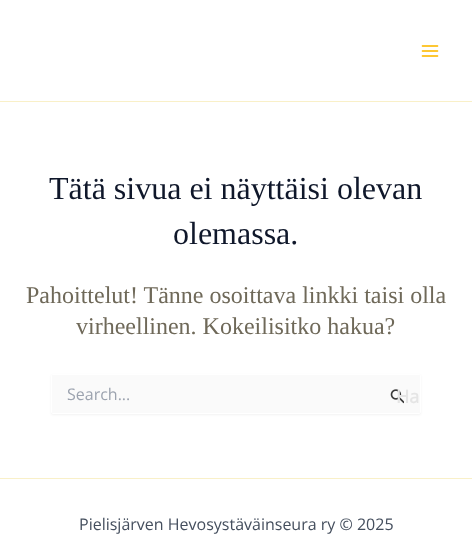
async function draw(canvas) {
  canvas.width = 472
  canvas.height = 550
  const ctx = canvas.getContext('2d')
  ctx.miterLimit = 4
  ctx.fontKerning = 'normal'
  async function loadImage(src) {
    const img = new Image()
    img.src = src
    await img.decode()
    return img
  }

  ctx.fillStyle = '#fff'
  ctx.fillRect(0, 0, 472, 550)
  ctx.fillStyle = '#f9f0c8'
  ctx.fillRect(0, 101, 472, 1)
  ctx.drawImage(await loadImage('image0.png'), 421, 45, 18, 12)
  ctx.font = '32px Liberation Serif'
  ctx.fillStyle = '#0f172a'
  ctx.fillText('Tätä sivua ei näyttäisi olevan', 49, 199)
  ctx.fillText('olemassa.', 173, 244)
  ctx.font = '24px Liberation Serif'
  ctx.fillStyle = '#6f6959'
  ctx.fillText('Pahoittelut! Tänne osoittava linkki taisi olla', 26, 303)
  ctx.fillText('virheellinen. Kokeilisitko hakua?', 76, 334)
  ctx.fillStyle = '#0000000d'
  ctx.filter = 'blur(1px)'
  ctx.beginPath()
  ctx.roundRect(51, 375, 370, 40, 2)
  ctx.fill()
  ctx.filter = 'none'
  ctx.fillStyle = '#fafafa'
  ctx.beginPath()
  ctx.roundRect(51.5, 374.5, 369, 39, 1.5)
  ctx.fill()
  ctx.strokeStyle = '#fff'
  ctx.stroke()
  ctx.font = '16px Open Sans'
  ctx.fillStyle = '#9ca3af'
  ctx.fillText('Search...', 67, 400)
  ctx.drawImage(await loadImage('image1.png'), 390, 389, 14, 15)
  ctx.font = 'bold 18px Open Sans'
  ctx.fillStyle = '#e5e5e5'
  ctx.fillText('Ha', 396, 403)
  ctx.fillStyle = '#f9f0c8'
  ctx.fillRect(0, 478, 472, 1)
  ctx.font = '16px Open Sans'
  ctx.fillStyle = '#454f5e'
  ctx.fillText('Pielisjärven Hevosystäväinseura ry © 2025', 79, 530)
}

draw(document.querySelector('canvas'))
